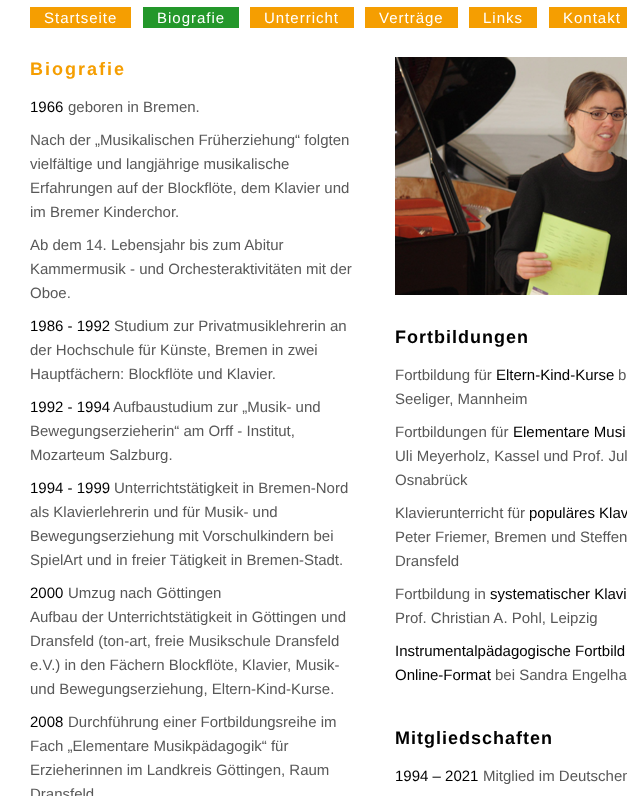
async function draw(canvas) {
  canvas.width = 627
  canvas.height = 796
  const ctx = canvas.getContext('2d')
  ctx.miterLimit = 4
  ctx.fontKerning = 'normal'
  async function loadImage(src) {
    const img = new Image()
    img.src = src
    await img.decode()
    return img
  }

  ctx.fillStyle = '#fff'
  ctx.fillRect(0, 0, 627, 796)
  ctx.fillStyle = '#f59e01'
  ctx.fillRect(30, 7, 101, 21)
  ctx.letterSpacing = '1px'
  ctx.font = '15px Liberation Sans'
  ctx.fillStyle = '#fff'
  ctx.fillText('Startseite', 44, 23)
  ctx.fillStyle = '#23972a'
  ctx.fillRect(143, 7, 96, 21)
  ctx.fillStyle = '#fff'
  ctx.fillText('Biografie', 157, 23)
  ctx.fillStyle = '#f59e01'
  ctx.fillRect(250, 7, 104, 21)
  ctx.fillStyle = '#fff'
  ctx.fillText('Unterricht', 264, 23)
  ctx.fillStyle = '#f59e01'
  ctx.fillRect(365, 7, 93, 21)
  ctx.fillStyle = '#fff'
  ctx.fillText('Verträge', 379, 23)
  ctx.fillStyle = '#f59e01'
  ctx.fillRect(469, 7, 68, 21)
  ctx.fillStyle = '#fff'
  ctx.fillText('Links', 483, 23)
  ctx.fillStyle = '#f59e01'
  ctx.fillRect(549, 7, 78, 21)
  ctx.fillStyle = '#fff'
  ctx.fillText('Kontakt', 563, 23)
  ctx.letterSpacing = '2px'
  ctx.font = 'bold 18px Liberation Sans'
  ctx.fillStyle = '#f59e01'
  ctx.fillText('Biografie', 30, 75)
  ctx.letterSpacing = '0px'
  ctx.font = '15px Liberation Sans'
  ctx.fillStyle = '#000'
  ctx.fillText('1966', 30, 112)
  ctx.fillStyle = '#585858'
  ctx.fillText('geboren in Bremen.', 68, 112)
  ctx.fillText('Nach der „Musikalischen Früherziehung“ folgten', 30, 145)
  ctx.fillText('vielfältige und langjährige musikalische', 30, 169)
  ctx.fillText('Erfahrungen auf der Blockflöte, dem Klavier und', 30, 193)
  ctx.fillText('im Bremer Kinderchor.', 30, 217)
  ctx.fillText('Ab dem 14. Lebensjahr bis zum Abitur', 30, 250)
  ctx.fillText('Kammermusik - und Orchesteraktivitäten mit der', 30, 274)
  ctx.fillText('Oboe.', 30, 298)
  ctx.fillStyle = '#000'
  ctx.fillText('1986 - 1992', 30, 331)
  ctx.fillStyle = '#585858'
  ctx.fillText('Studium zur Privatmusiklehrerin an', 114, 331)
  ctx.fillText('der Hochschule für Künste, Bremen in zwei', 30, 355)
  ctx.fillText('Hauptfächern: Blockflöte und Klavier.', 30, 379)
  ctx.fillStyle = '#000'
  ctx.fillText('1992 - 1994', 30, 412)
  ctx.fillStyle = '#585858'
  ctx.fillText('Aufbaustudium zur „Musik- und', 113, 412)
  ctx.fillText('Bewegungserzieherin“ am Orff - Institut,', 30, 436)
  ctx.fillText('Mozarteum Salzburg.', 30, 460)
  ctx.fillStyle = '#000'
  ctx.fillText('1994 - 1999', 30, 493)
  ctx.fillStyle = '#585858'
  ctx.fillText('Unterrichtstätigkeit in Bremen-Nord', 114, 493)
  ctx.fillText('als Klavierlehrerin und für Musik- und', 30, 517)
  ctx.fillText('Bewegungserziehung mit Vorschulkindern bei', 30, 541)
  ctx.fillText('SpielArt und in freier Tätigkeit in Bremen-Stadt.', 30, 565)
  ctx.fillStyle = '#000'
  ctx.fillText('2000', 30, 598)
  ctx.fillStyle = '#585858'
  ctx.fillText('Umzug nach Göttingen', 68, 598)
  ctx.fillText('Aufbau der Unterrichtstätigkeit in Göttingen und', 30, 622)
  ctx.fillText('Dransfeld (ton-art, freie Musikschule Dransfeld', 30, 646)
  ctx.fillText('e.V.) in den Fächern Blockflöte, Klavier, Musik-', 30, 670)
  ctx.fillText('und Bewegungserziehung, Eltern-Kind-Kurse.', 30, 694)
  ctx.fillStyle = '#000'
  ctx.fillText('2008', 30, 727)
  ctx.fillStyle = '#585858'
  ctx.fillText('Durchführung einer Fortbildungsreihe im', 68, 727)
  ctx.fillText('Fach „Elementare Musikpädagogik“ für', 30, 751)
  ctx.fillText('Erzieherinnen im Landkreis Göttingen, Raum', 30, 775)
  ctx.fillText('Dransfeld', 30, 799)
  ctx.drawImage(await loadImage('image0.png'), 395, 57, 232, 238)
  ctx.letterSpacing = '1px'
  ctx.font = 'bold 18px Liberation Sans'
  ctx.fillStyle = '#000'
  ctx.fillText('Fortbildungen', 395, 343)
  ctx.letterSpacing = '0px'
  ctx.font = '15px Liberation Sans'
  ctx.fillStyle = '#585858'
  ctx.fillText('Fortbildung für', 395, 380)
  ctx.fillStyle = '#000'
  ctx.fillText('Eltern-Kind-Kurse', 496, 380)
  ctx.fillStyle = '#585858'
  ctx.fillText('b', 618, 380)
  ctx.fillText('Seeliger, Mannheim', 395, 404)
  ctx.fillText('Fortbildungen für', 395, 437)
  ctx.fillStyle = '#000'
  ctx.fillText('Elementare Musi', 513, 437)
  ctx.fillStyle = '#585858'
  ctx.fillText('Uli Meyerholz, Kassel und Prof. Jul', 395, 461)
  ctx.fillText('Osnabrück', 395, 485)
  ctx.fillText('Klavierunterricht für', 395, 518)
  ctx.fillStyle = '#000'
  ctx.fillText('populäres Klav', 529, 518)
  ctx.fillStyle = '#585858'
  ctx.fillText('Peter Friemer, Bremen und Steffen', 395, 542)
  ctx.fillText('Dransfeld', 395, 566)
  ctx.fillText('Fortbildung in', 395, 599)
  ctx.fillStyle = '#000'
  ctx.fillText('systematischer Klavi', 490, 599)
  ctx.fillStyle = '#585858'
  ctx.fillText('Prof. Christian A. Pohl, Leipzig', 395, 623)
  ctx.fillStyle = '#000'
  ctx.fillText('Instrumentalpädagogische Fortbild', 395, 656)
  ctx.fillText('Online-Format', 395, 680)
  ctx.fillStyle = '#585858'
  ctx.fillText('bei Sandra Engelha', 495, 680)
  ctx.letterSpacing = '1px'
  ctx.font = 'bold 18px Liberation Sans'
  ctx.fillStyle = '#000'
  ctx.fillText('Mitgliedschaften', 395, 744)
  ctx.letterSpacing = '0px'
  ctx.font = '15px Liberation Sans'
  ctx.fillText('1994 – 2021', 395, 781)
  ctx.fillStyle = '#585858'
  ctx.fillText('Mitglied im Deutschen', 483, 781)
}

draw(document.querySelector('canvas'))
